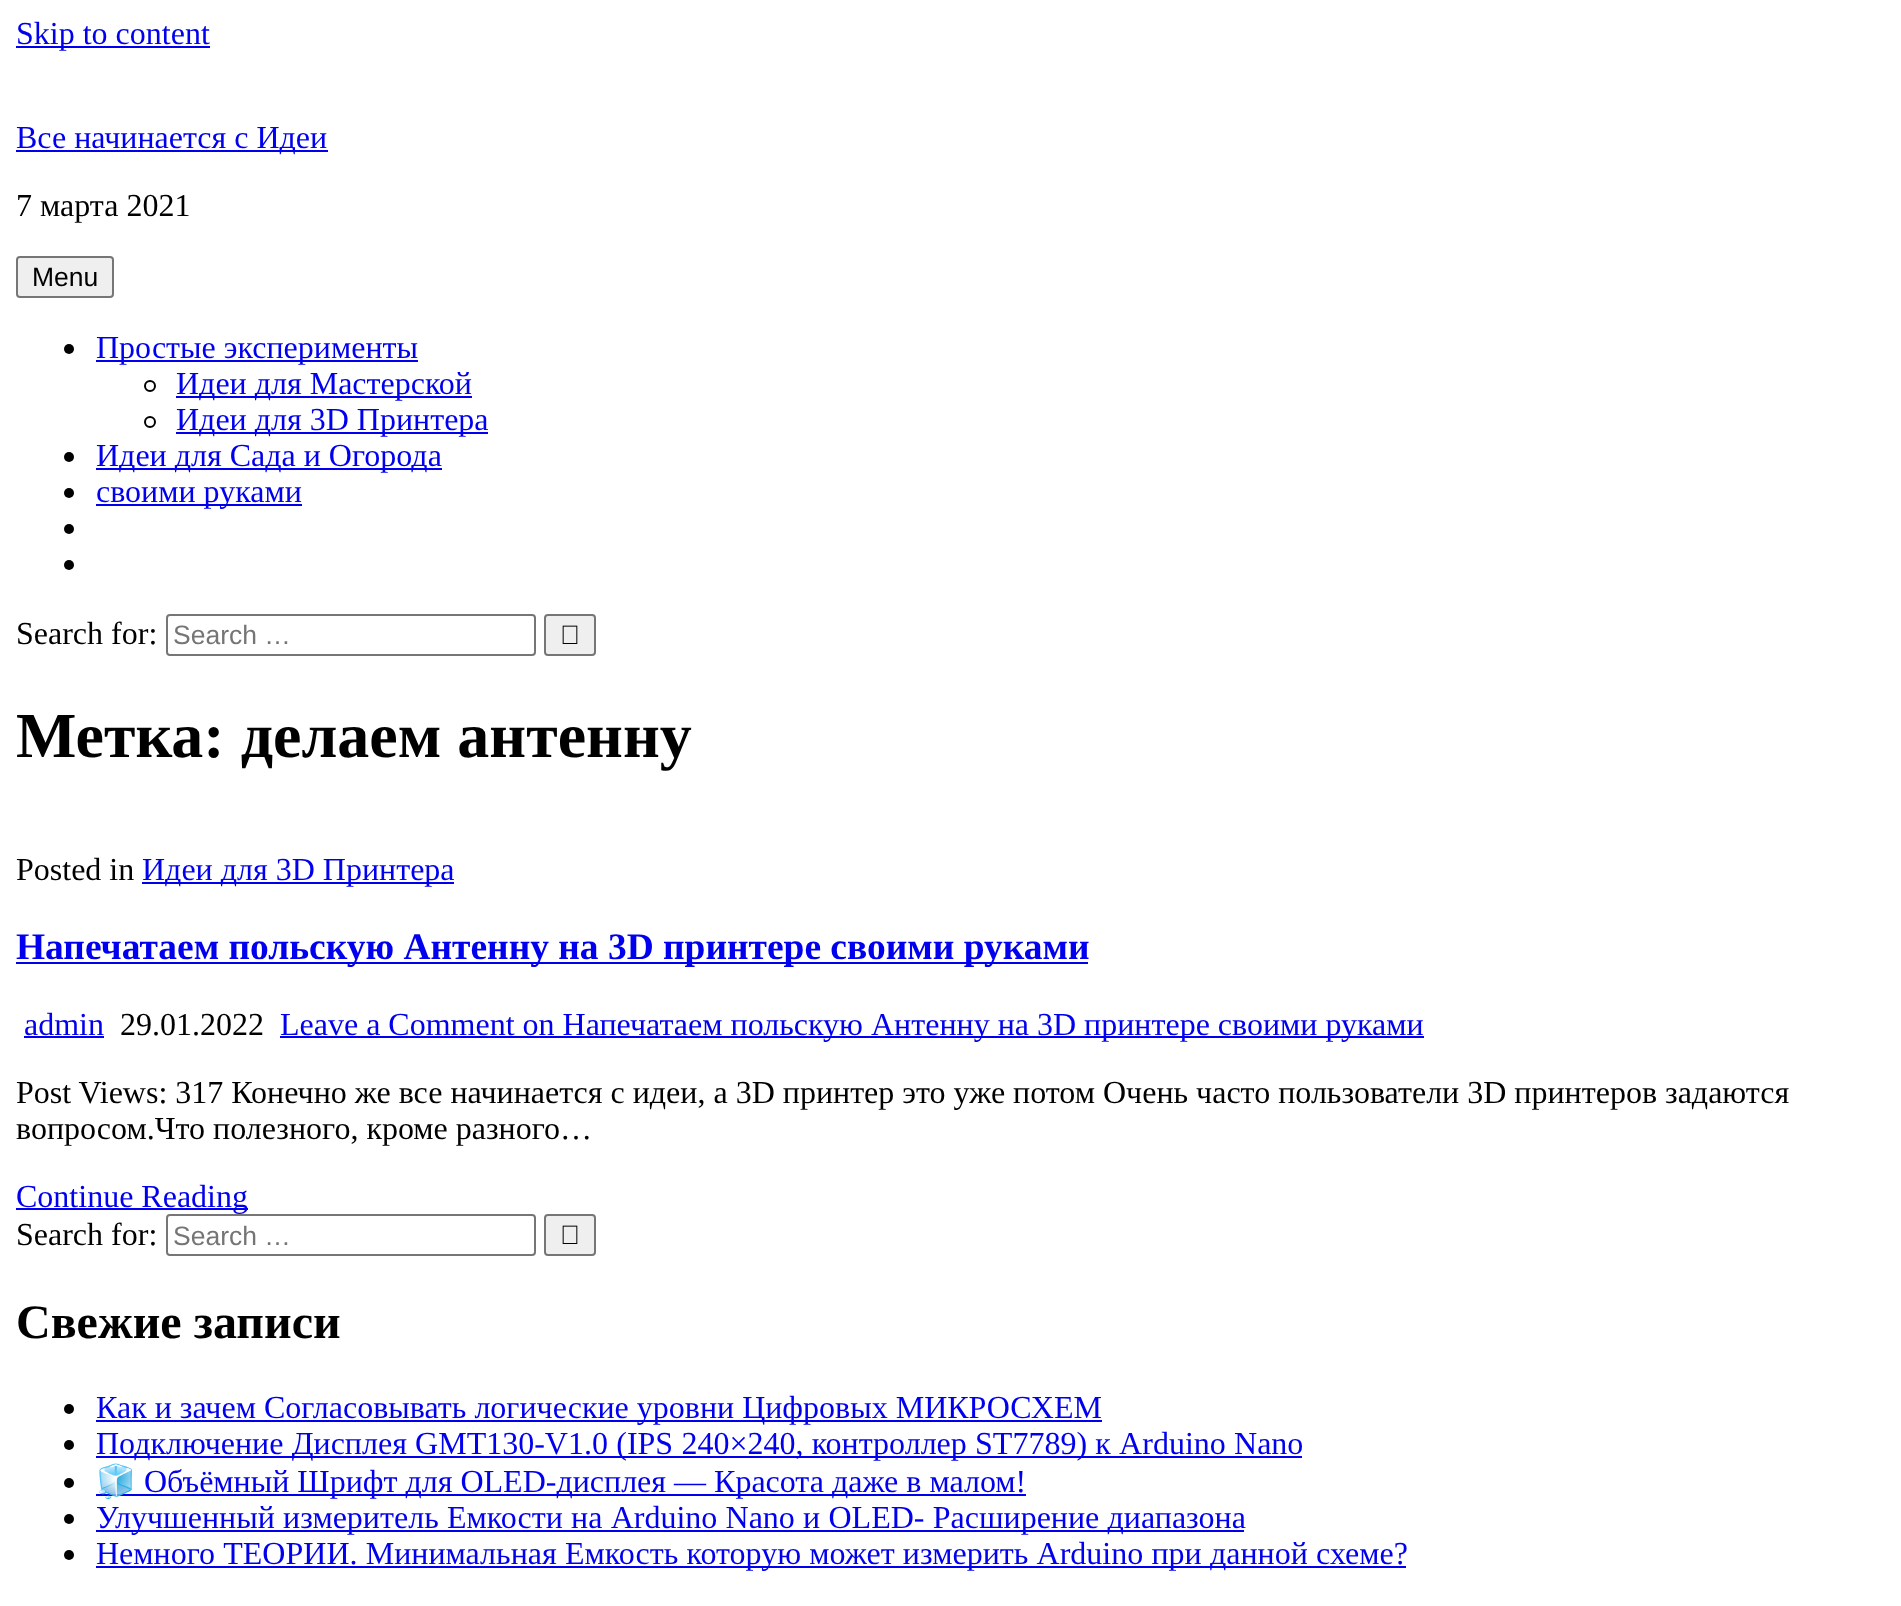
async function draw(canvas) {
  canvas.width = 1901
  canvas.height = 1606
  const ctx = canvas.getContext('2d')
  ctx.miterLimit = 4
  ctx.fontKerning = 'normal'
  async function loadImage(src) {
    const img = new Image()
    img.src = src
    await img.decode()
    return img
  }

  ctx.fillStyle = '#fff'
  ctx.fillRect(0, 0, 1901, 1606)
  ctx.fillStyle = '#00e'
  ctx.fillRect(16, 46, 194, 2)
  ctx.font = '32px Liberation Serif'
  ctx.fillText('Skip to content', 16, 44)
  ctx.fillRect(16, 150, 312, 2)
  ctx.fillText('Все начинается с Идеи', 16, 148)
  ctx.fillStyle = '#000'
  ctx.fillText('7 марта 2021', 16, 216)
  ctx.fillStyle = '#efefef'
  ctx.beginPath()
  ctx.roundRect(17, 257, 96, 40, 3)
  ctx.fill()
  ctx.strokeStyle = '#767676'
  ctx.lineWidth = 2
  ctx.stroke()
  ctx.font = '26.5px Liberation Sans'
  ctx.fillStyle = '#000'
  ctx.fillText('Menu', 32, 286)
  ctx.beginPath()
  ctx.arc(69, 349, 5, 0, 2 * Math.PI)
  ctx.fill()
  ctx.fillStyle = '#00e'
  ctx.fillRect(96, 360, 322, 2)
  ctx.font = '32px Liberation Serif'
  ctx.fillText('Простые эксперименты', 96, 358)
  ctx.beginPath()
  ctx.arc(150, 386, 5, 0, 2 * Math.PI)
  ctx.strokeStyle = '#000'
  ctx.stroke()
  ctx.fillRect(176, 396, 296, 2)
  ctx.fillText('Идеи для Мастерской', 176, 394)
  ctx.beginPath()
  ctx.arc(150, 422, 5, 0, 2 * Math.PI)
  ctx.stroke()
  ctx.fillRect(176, 432, 312, 2)
  ctx.fillText('Идеи для 3D Принтера', 176, 430)
  ctx.fillStyle = '#000'
  ctx.beginPath()
  ctx.arc(69, 457, 5, 0, 2 * Math.PI)
  ctx.fill()
  ctx.fillStyle = '#00e'
  ctx.fillRect(96, 468, 346, 2)
  ctx.fillText('Идеи для Сада и Огорода', 96, 466)
  ctx.fillStyle = '#000'
  ctx.beginPath()
  ctx.arc(69, 493, 5, 0, 2 * Math.PI)
  ctx.fill()
  ctx.fillStyle = '#00e'
  ctx.fillRect(96, 504, 206, 2)
  ctx.fillText('своими руками', 96, 502)
  ctx.fillStyle = '#000'
  ctx.beginPath()
  ctx.arc(69, 529, 5, 0, 2 * Math.PI)
  ctx.fill()
  ctx.beginPath()
  ctx.arc(69, 565, 5, 0, 2 * Math.PI)
  ctx.fill()
  ctx.fillText('Search for:', 16, 644)
  ctx.beginPath()
  ctx.roundRect(167, 615, 368, 40, 3)
  ctx.strokeStyle = '#767676'
  ctx.stroke()
  ctx.font = '26.5px Liberation Sans'
  ctx.fillStyle = '#757575'
  ctx.fillText('Search …', 173, 644)
  ctx.fillStyle = '#efefef'
  ctx.beginPath()
  ctx.roundRect(545, 615, 50, 40, 3)
  ctx.fill()
  ctx.stroke()
  ctx.drawImage(await loadImage('image0.png'), 562, 625, 16, 19)
  ctx.font = 'bold 64px Liberation Serif'
  ctx.fillStyle = '#000'
  ctx.fillText('Метка: делаем антенну', 16, 757)
  ctx.font = '32px Liberation Serif'
  ctx.fillText('Posted in', 16, 880)
  ctx.fillStyle = '#00e'
  ctx.fillRect(142, 882, 312, 2)
  ctx.fillText('Идеи для 3D Принтера', 142, 880)
  ctx.fillRect(16, 962, 1072, 2)
  ctx.font = 'bold 37.45px Liberation Serif'
  ctx.fillText('Напечатаем польскую Антенну на 3D принтере своими руками', 16, 959)
  ctx.font = '32px Liberation Serif'
  ctx.fillText('admin', 24, 1035)
  ctx.fillRect(24, 1036, 80, 2)
  ctx.fillStyle = '#000'
  ctx.fillText('29.01.2022', 120, 1035)
  ctx.fillStyle = '#00e'
  ctx.fillRect(280, 1036, 1144, 2)
  ctx.fillText('Leave a Comment on Напечатаем польскую Антенну на 3D принтере своими руками', 280, 1035)
  ctx.fillStyle = '#000'
  ctx.fillText('Post Views: 317 Конечно же все начинается с идеи, а 3D принтер это уже потом Очень часто пользователи 3D принтеров задаются', 16, 1103)
  ctx.fillText('вопросом.Что полезного, кроме разного…', 16, 1139)
  ctx.fillStyle = '#00e'
  ctx.fillRect(16, 1208, 232, 2)
  ctx.fillText('Continue Reading', 16, 1207)
  ctx.fillStyle = '#000'
  ctx.fillText('Search for:', 16, 1245)
  ctx.beginPath()
  ctx.roundRect(167, 1215, 368, 40, 3)
  ctx.stroke()
  ctx.font = '26.5px Liberation Sans'
  ctx.fillStyle = '#757575'
  ctx.fillText('Search …', 173, 1245)
  ctx.fillStyle = '#efefef'
  ctx.beginPath()
  ctx.roundRect(545, 1215, 50, 40, 3)
  ctx.fill()
  ctx.stroke()
  ctx.drawImage(await loadImage('image0.png'), 562, 1225, 16, 19)
  ctx.font = 'bold 48px Liberation Serif'
  ctx.fillStyle = '#000'
  ctx.fillText('Свежие записи', 16, 1338)
  ctx.beginPath()
  ctx.arc(69, 1409, 5, 0, 2 * Math.PI)
  ctx.fill()
  ctx.fillStyle = '#00e'
  ctx.fillRect(96, 1420, 1006, 2)
  ctx.font = '32px Liberation Serif'
  ctx.fillText('Как и зачем Согласовывать логические уровни Цифровых МИКРОСХЕМ', 96, 1418)
  ctx.fillStyle = '#000'
  ctx.beginPath()
  ctx.arc(69, 1445, 5, 0, 2 * Math.PI)
  ctx.fill()
  ctx.fillStyle = '#00e'
  ctx.fillRect(96, 1456, 1206, 2)
  ctx.wordSpacing = '0.25px'
  ctx.fillText('Подключение Дисплея GMT130-V1.0 (IPS 240×240, контроллер ST7789) к Arduino Nano', 96, 1454)
  ctx.fillStyle = '#000'
  ctx.beginPath()
  ctx.arc(69, 1483, 5, 0, 2 * Math.PI)
  ctx.fill()
  ctx.fillStyle = '#00e'
  ctx.fillRect(96, 1494, 930, 2)
  ctx.wordSpacing = '0px'
  ctx.font = '32px Noto Color Emoji'
  ctx.fillText('🧊', 96, 1492)
  ctx.font = '32px Liberation Serif'
  ctx.fillText('Объёмный Шрифт для OLED-дисплея — Красота даже в малом!', 144, 1492)
  ctx.fillStyle = '#000'
  ctx.beginPath()
  ctx.arc(69, 1519, 5, 0, 2 * Math.PI)
  ctx.fill()
  ctx.fillStyle = '#00e'
  ctx.fillRect(96, 1530, 1148, 2)
  ctx.wordSpacing = '0.25px'
  ctx.fillText('Улучшенный измеритель Емкости на Arduino Nano и OLED- Расширение диапазона', 96, 1528)
  ctx.fillStyle = '#000'
  ctx.beginPath()
  ctx.arc(69, 1555, 5, 0, 2 * Math.PI)
  ctx.fill()
  ctx.fillStyle = '#00e'
  ctx.fillRect(96, 1566, 1310, 2)
  ctx.fillText('Немного ТЕОРИИ. Минимальная Емкость которую может измерить Arduino при данной схеме?', 96, 1564)
}

draw(document.querySelector('canvas'))
